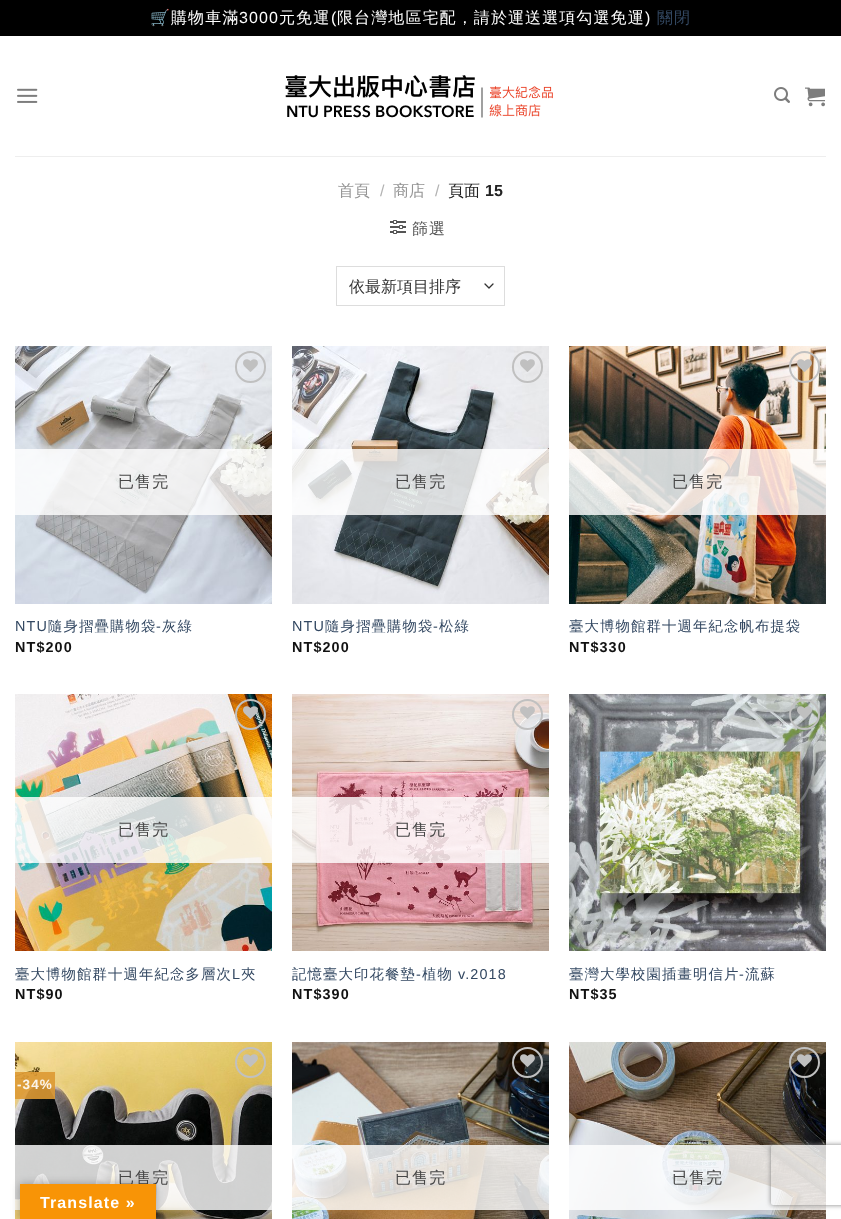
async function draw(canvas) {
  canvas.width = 841
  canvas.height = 1219
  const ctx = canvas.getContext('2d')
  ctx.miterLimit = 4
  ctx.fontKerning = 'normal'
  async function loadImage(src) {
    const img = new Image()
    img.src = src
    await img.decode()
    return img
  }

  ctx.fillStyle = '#000'
  ctx.fillRect(0, 0, 841, 1219)
  ctx.letterSpacing = '1.1px'
  ctx.font = '16px Noto Color Emoji'
  ctx.fillStyle = '#fff'
  ctx.fillText('🛒', 150, 23)
  ctx.font = '500 16px WenQuanYi Zen Hei'
  ctx.fillText('購物車滿', 171, 23)
  ctx.font = '16px Liberation Sans'
  ctx.fillText('3000', 239, 23)
  ctx.font = '500 16px WenQuanYi Zen Hei'
  ctx.fillText('元免運', 279, 23)
  ctx.font = '16px Liberation Sans'
  ctx.fillText('(', 331, 23)
  ctx.font = '500 16px WenQuanYi Zen Hei'
  ctx.fillText('限台灣地區宅配，請於運送選項勾選免運', 337, 23)
  ctx.font = '16px Liberation Sans'
  ctx.fillText(')', 645, 23)
  ctx.font = '500 16px WenQuanYi Zen Hei'
  ctx.fillStyle = '#334862'
  ctx.fillText('關閉', 657, 23)
  ctx.fillStyle = '#fff'
  ctx.fillRect(0, 36, 841, 1183)
  ctx.drawImage(await loadImage('image0.png'), 17, 88, 21, 15)
  ctx.drawImage(await loadImage('image1.png'), 285, 75, 268, 43)
  ctx.drawImage(await loadImage('image2.png'), 774, 87, 16, 16)
  ctx.drawImage(await loadImage('image3.png'), 805, 87, 20, 20)
  ctx.fillStyle = '#eee'
  ctx.fillRect(15, 156, 811, 1)
  ctx.letterSpacing = '0px'
  ctx.fillStyle = '#949494'
  ctx.fillText('首頁', 338, 196)
  ctx.font = '16px Liberation Sans'
  ctx.fillStyle = '#b2b2b2'
  ctx.fillText('/', 380, 196)
  ctx.font = '500 16px WenQuanYi Zen Hei'
  ctx.fillStyle = '#949494'
  ctx.fillText('商店', 393, 196)
  ctx.font = '16px Liberation Sans'
  ctx.fillStyle = '#b2b2b2'
  ctx.fillText('/', 435, 196)
  ctx.font = '500 16px WenQuanYi Zen Hei'
  ctx.fillStyle = '#222'
  ctx.fillText('頁面', 448, 196)
  ctx.font = 'bold 16px Liberation Sans'
  ctx.fillText('15', 485, 196)
  ctx.drawImage(await loadImage('image4.png'), 390, 220, 16, 14)
  ctx.letterSpacing = '1px'
  ctx.font = '500 16px WenQuanYi Zen Hei'
  ctx.fillStyle = '#555'
  ctx.fillText('篩選', 412, 234)
  ctx.beginPath()
  ctx.moveTo(485, 284)
  ctx.lineTo(489, 288)
  ctx.lineTo(493, 284)
  ctx.strokeStyle = '#333'
  ctx.lineWidth = 1.3
  ctx.lineCap = 'round'
  ctx.lineJoin = 'round'
  ctx.stroke()
  ctx.strokeStyle = '#ddd'
  ctx.lineWidth = 1
  ctx.lineJoin = 'miter'
  ctx.strokeRect(336.5, 266.5, 168, 39)
  ctx.letterSpacing = '0px'
  ctx.fillStyle = '#333'
  ctx.fillText('依最新項目排序', 349, 292)
  ctx.drawImage(await loadImage('image5.png'), 15, 346, 257, 258)
  ctx.beginPath()
  ctx.roundRect(236, 352, 29, 30, 14.5)
  ctx.strokeStyle = '#c0c0c0'
  ctx.lineWidth = 2
  ctx.stroke()
  ctx.drawImage(await loadImage('image6.png'), 243, 359, 15, 13)
  ctx.fillStyle = '#ffffffcf'
  ctx.fillRect(15, 449, 257, 66)
  ctx.letterSpacing = '1.1px'
  ctx.fillStyle = '#464646'
  ctx.fillText('已售完', 118, 487)
  ctx.font = '14.4px Liberation Sans'
  ctx.fillStyle = '#334862'
  ctx.fillText('NTU', 15, 631)
  ctx.font = '500 14.4px WenQuanYi Zen Hei'
  ctx.fillText('隨身摺疊購物袋', 48, 631)
  ctx.font = '14.4px Liberation Sans'
  ctx.fillText('-', 156, 631)
  ctx.font = '500 14.4px WenQuanYi Zen Hei'
  ctx.fillText('灰綠', 162, 631)
  ctx.font = 'bold 14.4px Liberation Sans'
  ctx.fillStyle = '#111'
  ctx.fillText('NT$200', 15, 652)
  ctx.drawImage(await loadImage('image7.png'), 292, 346, 257, 258)
  ctx.beginPath()
  ctx.roundRect(513, 352, 29, 30, 14.5)
  ctx.stroke()
  ctx.drawImage(await loadImage('image8.png'), 520, 359, 15, 13)
  ctx.fillStyle = '#ffffffcf'
  ctx.fillRect(292, 449, 257, 66)
  ctx.font = '500 16px WenQuanYi Zen Hei'
  ctx.fillStyle = '#464646'
  ctx.fillText('已售完', 395, 487)
  ctx.font = '14.4px Liberation Sans'
  ctx.fillStyle = '#334862'
  ctx.fillText('NTU', 292, 631)
  ctx.font = '500 14.4px WenQuanYi Zen Hei'
  ctx.fillText('隨身摺疊購物袋', 325, 631)
  ctx.font = '14.4px Liberation Sans'
  ctx.fillText('-', 433, 631)
  ctx.font = '500 14.4px WenQuanYi Zen Hei'
  ctx.fillText('松綠', 439, 631)
  ctx.font = 'bold 14.4px Liberation Sans'
  ctx.fillStyle = '#111'
  ctx.fillText('NT$200', 292, 652)
  ctx.drawImage(await loadImage('image9.png'), 569, 346, 257, 258)
  ctx.beginPath()
  ctx.roundRect(790, 352, 29, 30, 14.5)
  ctx.stroke()
  ctx.drawImage(await loadImage('image10.png'), 797, 359, 15, 13)
  ctx.fillStyle = '#ffffffcf'
  ctx.fillRect(569, 449, 257, 66)
  ctx.font = '500 16px WenQuanYi Zen Hei'
  ctx.fillStyle = '#464646'
  ctx.fillText('已售完', 672, 487)
  ctx.font = '500 14.4px WenQuanYi Zen Hei'
  ctx.fillStyle = '#334862'
  ctx.fillText('臺大博物館群十週年紀念帆布提袋', 569, 631)
  ctx.font = 'bold 14.4px Liberation Sans'
  ctx.fillStyle = '#111'
  ctx.fillText('NT$330', 569, 652)
  ctx.drawImage(await loadImage('image11.png'), 15, 694, 257, 257)
  ctx.beginPath()
  ctx.arc(250.5, 714.5, 14.5, 0, 2 * Math.PI)
  ctx.stroke()
  ctx.drawImage(await loadImage('image12.png'), 243, 706, 15, 13)
  ctx.fillStyle = '#ffffffcf'
  ctx.fillRect(15, 797, 257, 66)
  ctx.font = '500 16px WenQuanYi Zen Hei'
  ctx.fillStyle = '#464646'
  ctx.fillText('已售完', 118, 835)
  ctx.font = '500 14.4px WenQuanYi Zen Hei'
  ctx.fillStyle = '#334862'
  ctx.fillText('臺大博物館群十週年紀念多層次', 15, 979)
  ctx.font = '14.4px Liberation Sans'
  ctx.fillText('L', 232, 979)
  ctx.font = '500 14.4px WenQuanYi Zen Hei'
  ctx.fillText('夾', 241, 979)
  ctx.font = 'bold 14.4px Liberation Sans'
  ctx.fillStyle = '#111'
  ctx.fillText('NT$90', 15, 999)
  ctx.drawImage(await loadImage('image13.png'), 292, 694, 257, 257)
  ctx.beginPath()
  ctx.arc(527.5, 714.5, 14.5, 0, 2 * Math.PI)
  ctx.stroke()
  ctx.drawImage(await loadImage('image14.png'), 520, 706, 15, 13)
  ctx.fillStyle = '#ffffffcf'
  ctx.fillRect(292, 797, 257, 66)
  ctx.font = '500 16px WenQuanYi Zen Hei'
  ctx.fillStyle = '#464646'
  ctx.fillText('已售完', 395, 835)
  ctx.font = '500 14.4px WenQuanYi Zen Hei'
  ctx.fillStyle = '#334862'
  ctx.fillText('記憶臺大印花餐墊', 292, 979)
  ctx.font = '14.4px Liberation Sans'
  ctx.fillText('-', 416, 979)
  ctx.font = '500 14.4px WenQuanYi Zen Hei'
  ctx.fillText('植物', 422, 979)
  ctx.font = '14.4px Liberation Sans'
  ctx.fillText('v.2018', 458, 979)
  ctx.font = 'bold 14.4px Liberation Sans'
  ctx.fillStyle = '#111'
  ctx.fillText('NT$390', 292, 999)
  ctx.drawImage(await loadImage('image15.png'), 569, 694, 257, 257)
  ctx.beginPath()
  ctx.arc(804.5, 714.5, 14.5, 0, 2 * Math.PI)
  ctx.stroke()
  ctx.drawImage(await loadImage('image16.png'), 797, 706, 15, 13)
  ctx.font = '500 14.4px WenQuanYi Zen Hei'
  ctx.fillStyle = '#334862'
  ctx.fillText('臺灣大學校園插畫明信片', 569, 979)
  ctx.font = '14.4px Liberation Sans'
  ctx.fillText('-', 739, 979)
  ctx.font = '500 14.4px WenQuanYi Zen Hei'
  ctx.fillText('流蘇', 745, 979)
  ctx.font = 'bold 14.4px Liberation Sans'
  ctx.fillStyle = '#111'
  ctx.fillText('NT$35', 569, 999)
  ctx.drawImage(await loadImage('image17.png'), 15, 1042, 257, 177)
  ctx.fillStyle = '#dd9933e6'
  ctx.fillRect(15, 1072, 40, 27)
  ctx.font = 'bold 13.5px Liberation Sans'
  ctx.fillStyle = '#fbf5eb'
  ctx.fillText('-34%', 17, 1089)
  ctx.beginPath()
  ctx.arc(250.5, 1062.5, 14.5, 0, 2 * Math.PI)
  ctx.stroke()
  ctx.drawImage(await loadImage('image18.png'), 243, 1054, 15, 13)
  ctx.fillStyle = '#ffffffcf'
  ctx.fillRect(15, 1145, 257, 65)
  ctx.font = '500 16px WenQuanYi Zen Hei'
  ctx.fillStyle = '#464646'
  ctx.fillText('已售完', 118, 1183)
  ctx.drawImage(await loadImage('image19.png'), 292, 1042, 257, 177)
  ctx.beginPath()
  ctx.arc(527.5, 1062.5, 14.5, 0, 2 * Math.PI)
  ctx.stroke()
  ctx.drawImage(await loadImage('image20.png'), 520, 1054, 15, 13)
  ctx.fillStyle = '#ffffffcf'
  ctx.fillRect(292, 1145, 257, 65)
  ctx.fillStyle = '#464646'
  ctx.fillText('已售完', 395, 1183)
  ctx.drawImage(await loadImage('image21.png'), 569, 1042, 257, 177)
  ctx.beginPath()
  ctx.arc(804.5, 1062.5, 14.5, 0, 2 * Math.PI)
  ctx.stroke()
  ctx.drawImage(await loadImage('image22.png'), 797, 1054, 15, 13)
  ctx.fillStyle = '#ffffffcf'
  ctx.fillRect(569, 1145, 257, 65)
  ctx.fillStyle = '#464646'
  ctx.fillText('已售完', 672, 1183)
  ctx.save()
  ctx.beginPath()
  ctx.moveTo(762, 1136)
  ctx.lineTo(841, 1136)
  ctx.lineTo(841, 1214)
  ctx.lineTo(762, 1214)
  ctx.closePath()
  ctx.moveTo(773, 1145)
  ctx.lineTo(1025, 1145)
  ctx.bezierCurveTo(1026, 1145, 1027, 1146, 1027, 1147)
  ctx.lineTo(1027, 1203)
  ctx.bezierCurveTo(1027, 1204, 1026, 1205, 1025, 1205)
  ctx.lineTo(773, 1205)
  ctx.bezierCurveTo(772, 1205, 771, 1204, 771, 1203)
  ctx.lineTo(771, 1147)
  ctx.bezierCurveTo(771, 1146, 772, 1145, 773, 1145)
  ctx.closePath()
  ctx.clip('evenodd')
  ctx.fillStyle = '#808080'
  ctx.filter = 'blur(2.5px)'
  ctx.beginPath()
  ctx.roundRect(771, 1145, 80, 60, 2)
  ctx.fill()
  ctx.filter = 'none'
  ctx.restore()
  ctx.fillStyle = '#0000004d'
  ctx.filter = 'blur(4.5px)'
  ctx.beginPath()
  ctx.rect(20, 1184, 136, 35)
  ctx.fill()
  ctx.filter = 'none'
  ctx.fillStyle = '#f89406'
  ctx.fillRect(20, 1184, 136, 35)
  ctx.font = 'bold 16px Liberation Sans'
  ctx.fillStyle = '#fff'
  ctx.fillText('Translate »', 40, 1208)
}

draw(document.querySelector('canvas'))
